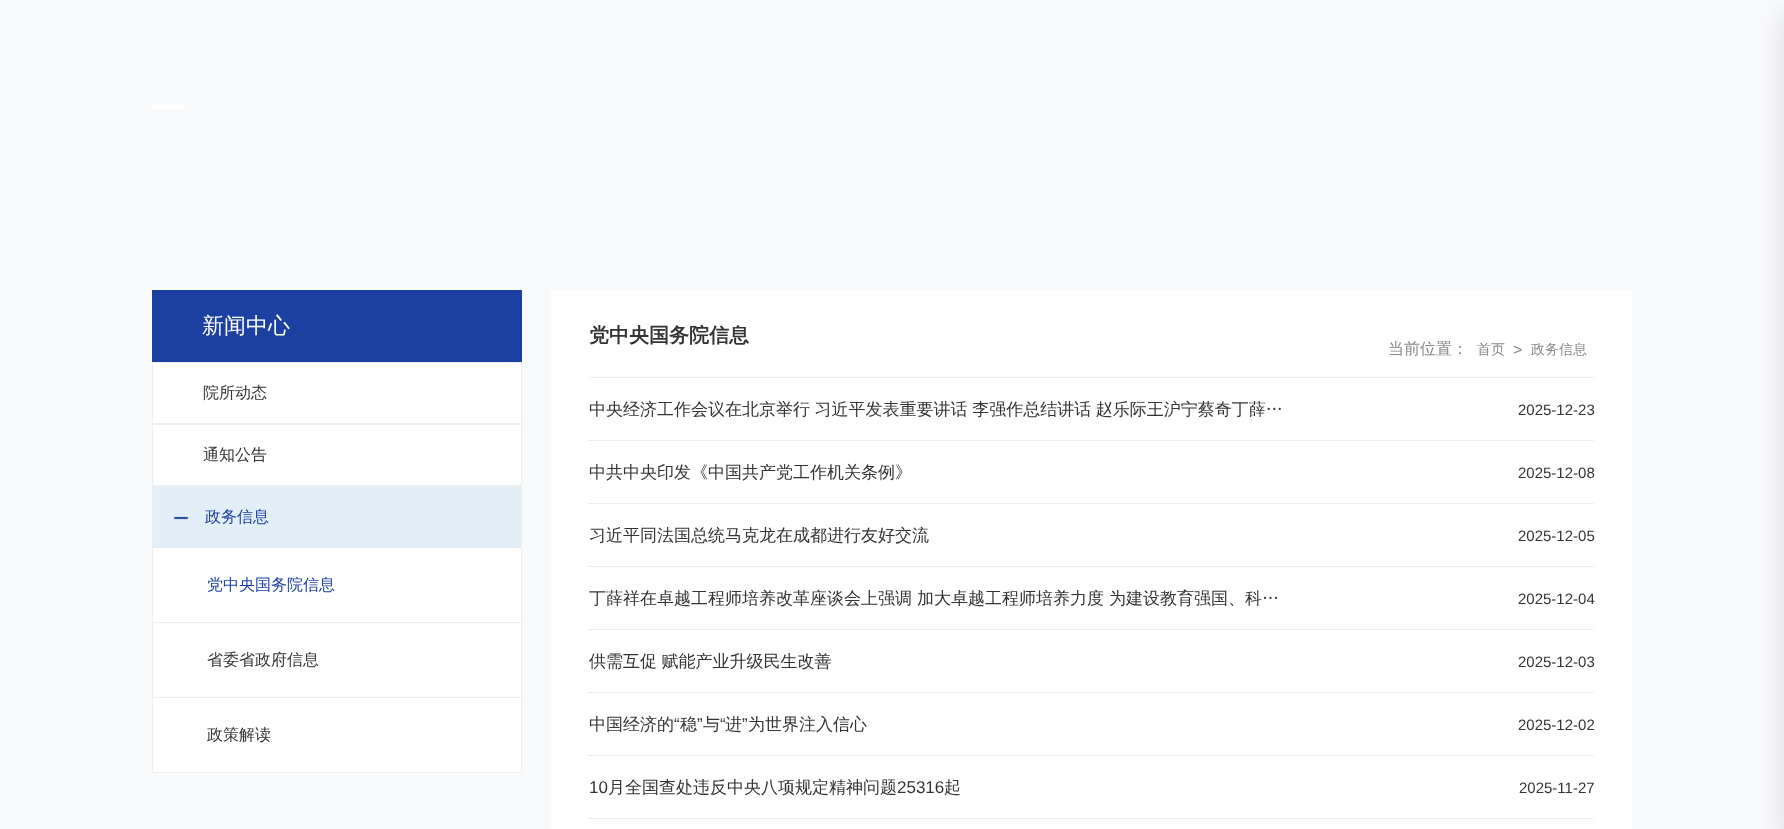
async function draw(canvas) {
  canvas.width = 1784
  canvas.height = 829
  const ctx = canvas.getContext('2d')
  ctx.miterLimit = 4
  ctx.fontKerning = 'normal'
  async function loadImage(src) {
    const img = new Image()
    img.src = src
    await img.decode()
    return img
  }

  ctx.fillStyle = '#f9fafc'
  ctx.fillRect(0, 0, 1784, 829)
  ctx.fillStyle = '#fff'
  ctx.fillRect(152, 104, 32, 5)
  ctx.fillStyle = '#a7a5a561'
  ctx.filter = 'blur(13.5px)'
  ctx.beginPath()
  ctx.rect(1784, 15, 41, 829)
  ctx.fill()
  ctx.filter = 'none'
  ctx.fillStyle = '#1c3fa2'
  ctx.fillRect(152, 290, 370, 72)
  ctx.font = '500 22px WenQuanYi Zen Hei'
  ctx.fillStyle = '#fff'
  ctx.fillText('新闻中心', 202, 333)
  ctx.beginPath()
  ctx.rect(152.5, 362.5, 369, 61)
  ctx.fill()
  ctx.strokeStyle = '#eee'
  ctx.stroke()
  ctx.font = '500 16px WenQuanYi Zen Hei'
  ctx.fillStyle = '#333'
  ctx.fillText('院所动态', 203, 398)
  ctx.fillStyle = '#fff'
  ctx.beginPath()
  ctx.rect(152.5, 424.5, 369, 61)
  ctx.fill()
  ctx.stroke()
  ctx.fillStyle = '#333'
  ctx.fillText('通知公告', 203, 460)
  ctx.fillStyle = '#e3eff8'
  ctx.fillRect(153, 487, 368, 60)
  ctx.strokeRect(152.5, 486.5, 369, 286)
  ctx.drawImage(await loadImage('image0.png'), 173, 516, 16, 4)
  ctx.fillStyle = '#1c3fa2'
  ctx.fillText('政务信息', 205, 522)
  ctx.fillStyle = '#fff'
  ctx.fillRect(153, 548, 368, 74)
  ctx.fillStyle = '#eee'
  ctx.fillRect(153, 547, 368, 1)
  ctx.fillStyle = '#1c3fa2'
  ctx.fillText('党中央国务院信息', 207, 590)
  ctx.fillStyle = '#fff'
  ctx.fillRect(153, 623, 368, 74)
  ctx.fillStyle = '#eee'
  ctx.fillRect(153, 622, 368, 1)
  ctx.fillStyle = '#333'
  ctx.fillText('省委省政府信息', 207, 665)
  ctx.fillStyle = '#fff'
  ctx.fillRect(153, 698, 368, 74)
  ctx.fillStyle = '#eee'
  ctx.fillRect(153, 697, 368, 1)
  ctx.fillStyle = '#333'
  ctx.fillText('政策解读', 207, 740)
  ctx.fillStyle = '#fff'
  ctx.fillRect(551, 290, 1081, 539)
  ctx.fillStyle = '#eee'
  ctx.fillRect(589, 377, 1006, 1)
  ctx.font = 'bold 20px WenQuanYi Zen Hei'
  ctx.fillStyle = '#333'
  ctx.fillText('党中央国务院信息', 589, 342)
  ctx.font = '500 16px WenQuanYi Zen Hei'
  ctx.fillStyle = '#888'
  ctx.fillText('当前位置：', 1388, 354)
  ctx.font = '500 14px WenQuanYi Zen Hei'
  ctx.fillText('首页', 1477, 354)
  ctx.font = '16px Liberation Sans'
  ctx.fillText('>', 1513, 355)
  ctx.font = '500 14px WenQuanYi Zen Hei'
  ctx.fillText('政务信息', 1531, 354)
  ctx.beginPath()
  ctx.moveTo(589, 440.5)
  ctx.lineTo(1595, 440.5)
  ctx.strokeStyle = '#ddd'
  ctx.setLineDash([1, 1])
  ctx.stroke()
  ctx.wordSpacing = '-0.5px'
  ctx.font = '500 17px WenQuanYi Zen Hei'
  ctx.fillStyle = '#333'
  ctx.fillText('中央经济工作会议在北京举行 习近平发表重要讲话 李强作总结讲话 赵乐际王沪宁蔡奇丁薛…', 589, 415)
  ctx.wordSpacing = '0px'
  ctx.font = '15px Liberation Sans'
  ctx.fillText('2025-12-23', 1518, 415)
  ctx.beginPath()
  ctx.moveTo(589, 503.5)
  ctx.lineTo(1595, 503.5)
  ctx.stroke()
  ctx.font = '500 17px WenQuanYi Zen Hei'
  ctx.fillText('中共中央印发《中国共产党工作机关条例》', 589, 478)
  ctx.font = '15px Liberation Sans'
  ctx.fillText('2025-12-08', 1518, 478)
  ctx.beginPath()
  ctx.moveTo(589, 566.5)
  ctx.lineTo(1595, 566.5)
  ctx.stroke()
  ctx.font = '500 17px WenQuanYi Zen Hei'
  ctx.fillText('习近平同法国总统马克龙在成都进行友好交流', 589, 541)
  ctx.font = '15px Liberation Sans'
  ctx.fillText('2025-12-05', 1518, 541)
  ctx.beginPath()
  ctx.moveTo(589, 629.5)
  ctx.lineTo(1595, 629.5)
  ctx.stroke()
  ctx.font = '500 17px WenQuanYi Zen Hei'
  ctx.fillText('丁薛祥在卓越工程师培养改革座谈会上强调', 589, 604)
  ctx.fillText('加大卓越工程师培养力度', 917, 604)
  ctx.fillText('为建设教育强国、科…', 1109, 604)
  ctx.font = '15px Liberation Sans'
  ctx.fillText('2025-12-04', 1518, 604)
  ctx.beginPath()
  ctx.moveTo(589, 692.5)
  ctx.lineTo(1595, 692.5)
  ctx.stroke()
  ctx.wordSpacing = '-0.5px'
  ctx.font = '500 17px WenQuanYi Zen Hei'
  ctx.fillText('供需互促 赋能产业升级民生改善', 589, 667)
  ctx.wordSpacing = '0px'
  ctx.font = '15px Liberation Sans'
  ctx.fillText('2025-12-03', 1518, 667)
  ctx.beginPath()
  ctx.moveTo(589, 755.5)
  ctx.lineTo(1595, 755.5)
  ctx.stroke()
  ctx.font = '500 17px WenQuanYi Zen Hei'
  ctx.fillText('中国经济的', 589, 730)
  ctx.font = '17px Liberation Sans'
  ctx.fillText('“', 674, 730)
  ctx.font = '500 17px WenQuanYi Zen Hei'
  ctx.fillText('稳', 680, 730)
  ctx.font = '17px Liberation Sans'
  ctx.fillText('”', 697, 730)
  ctx.font = '500 17px WenQuanYi Zen Hei'
  ctx.fillText('与', 703, 730)
  ctx.font = '17px Liberation Sans'
  ctx.fillText('“', 720, 730)
  ctx.font = '500 17px WenQuanYi Zen Hei'
  ctx.fillText('进', 725, 730)
  ctx.font = '17px Liberation Sans'
  ctx.fillText('”', 742, 730)
  ctx.font = '500 17px WenQuanYi Zen Hei'
  ctx.fillText('为世界注入信心', 748, 730)
  ctx.font = '15px Liberation Sans'
  ctx.fillText('2025-12-02', 1518, 730)
  ctx.beginPath()
  ctx.moveTo(589, 818.5)
  ctx.lineTo(1595, 818.5)
  ctx.stroke()
  ctx.font = '17px Liberation Sans'
  ctx.fillText('10', 589, 793)
  ctx.font = '500 17px WenQuanYi Zen Hei'
  ctx.fillText('月全国查处违反中央八项规定精神问题', 608, 793)
  ctx.font = '17px Liberation Sans'
  ctx.fillText('25316', 897, 793)
  ctx.font = '500 17px WenQuanYi Zen Hei'
  ctx.fillText('起', 944, 793)
  ctx.font = '15px Liberation Sans'
  ctx.fillText('2025-11-27', 1519, 793)
}

draw(document.querySelector('canvas'))
